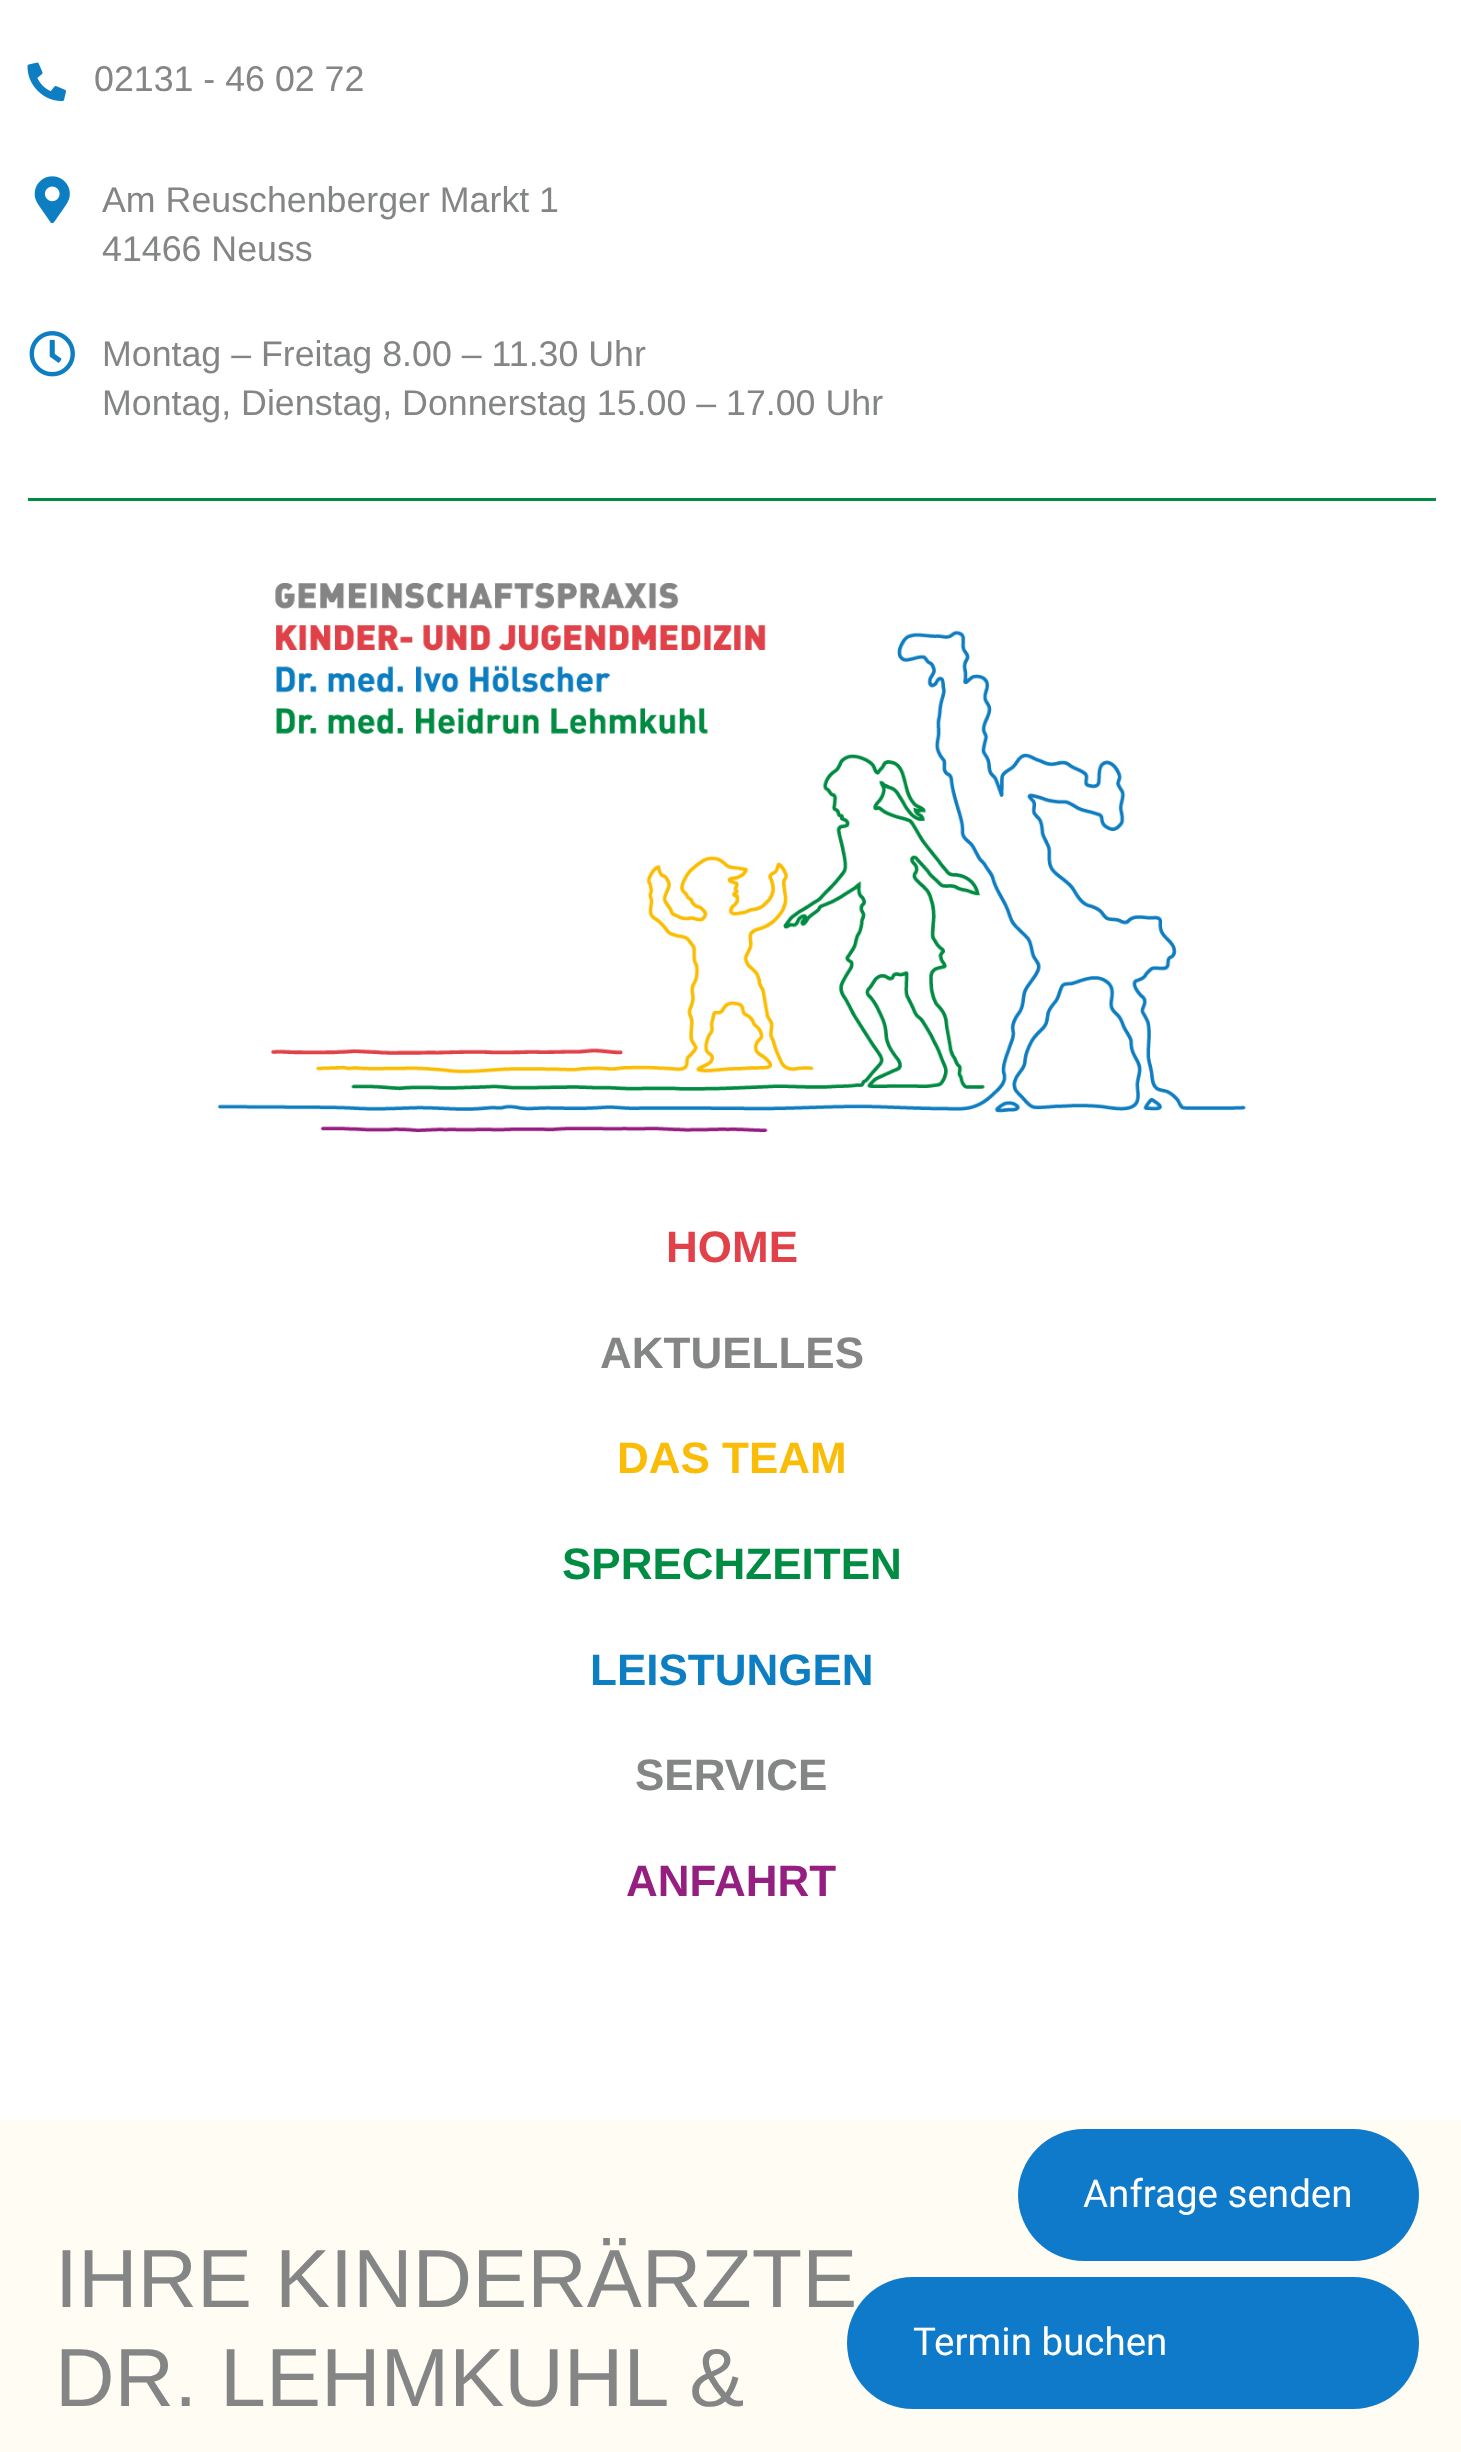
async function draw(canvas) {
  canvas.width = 1461
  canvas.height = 2452
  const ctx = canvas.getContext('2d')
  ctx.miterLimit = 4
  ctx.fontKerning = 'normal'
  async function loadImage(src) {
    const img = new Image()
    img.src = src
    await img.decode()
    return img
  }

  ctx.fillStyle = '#fff'
  ctx.fillRect(0, 0, 1461, 2452)
  ctx.drawImage(await loadImage('image0.png'), 27, 62, 39, 40)
  ctx.font = '35.75px Liberation Sans'
  ctx.fillStyle = '#848685'
  ctx.fillText('02131 - 46 02 72', 94, 91)
  ctx.drawImage(await loadImage('image1.png'), 34, 176, 36, 48)
  ctx.fillText('Am Reuschenberger Markt 1', 102, 212)
  ctx.fillText('41466 Neuss', 102, 261)
  ctx.drawImage(await loadImage('image2.png'), 29, 331, 46, 46)
  ctx.fillText('Montag – Freitag 8.00 – 11.30 Uhr', 102, 366)
  ctx.fillText('Montag, Dienstag, Donnerstag 15.00 – 17.00 Uhr', 102, 415)
  ctx.fillStyle = '#018c43'
  ctx.fillRect(28, 498, 1408, 3)
  ctx.drawImage(await loadImage('image3.png'), 217, 583, 1029, 550)
  ctx.font = 'bold 44px Liberation Sans'
  ctx.fillStyle = '#e14249'
  ctx.fillText('HOME', 666, 1262)
  ctx.fillStyle = '#848685'
  ctx.fillText('AKTUELLES', 600, 1368)
  ctx.fillStyle = '#fabc07'
  ctx.fillText('DAS TEAM', 617, 1473)
  ctx.fillStyle = '#018c43'
  ctx.fillText('SPRECHZEITEN', 562, 1579)
  ctx.fillStyle = '#0c7ec1'
  ctx.fillText('LEISTUNGEN', 590, 1685)
  ctx.fillStyle = '#848685'
  ctx.fillText('SERVICE', 635, 1790)
  ctx.fillStyle = '#941f81'
  ctx.fillText('ANFAHRT', 626, 1896)
  ctx.fillStyle = '#fffcf3'
  ctx.fillRect(0, 2120, 1461, 332)
  ctx.font = '82.5px Liberation Sans'
  ctx.fillStyle = '#848685'
  ctx.fillText('IHRE KINDERÄRZTE', 55, 2307)
  ctx.fillText('DR. LEHMKUHL &', 55, 2406)
  ctx.fillStyle = '#107aca'
  ctx.beginPath()
  ctx.roundRect(1018, 2129, 401, 132, 66)
  ctx.fill()
  ctx.font = '38.5px Roboto'
  ctx.fillStyle = '#fff'
  ctx.fillText('Anfrage senden', 1083, 2207)
  ctx.fillStyle = '#107aca'
  ctx.beginPath()
  ctx.roundRect(847, 2277, 572, 132, 66)
  ctx.fill()
  ctx.fillStyle = '#fff'
  ctx.fillText('Termin buchen', 913, 2355)
}

draw(document.querySelector('canvas'))
